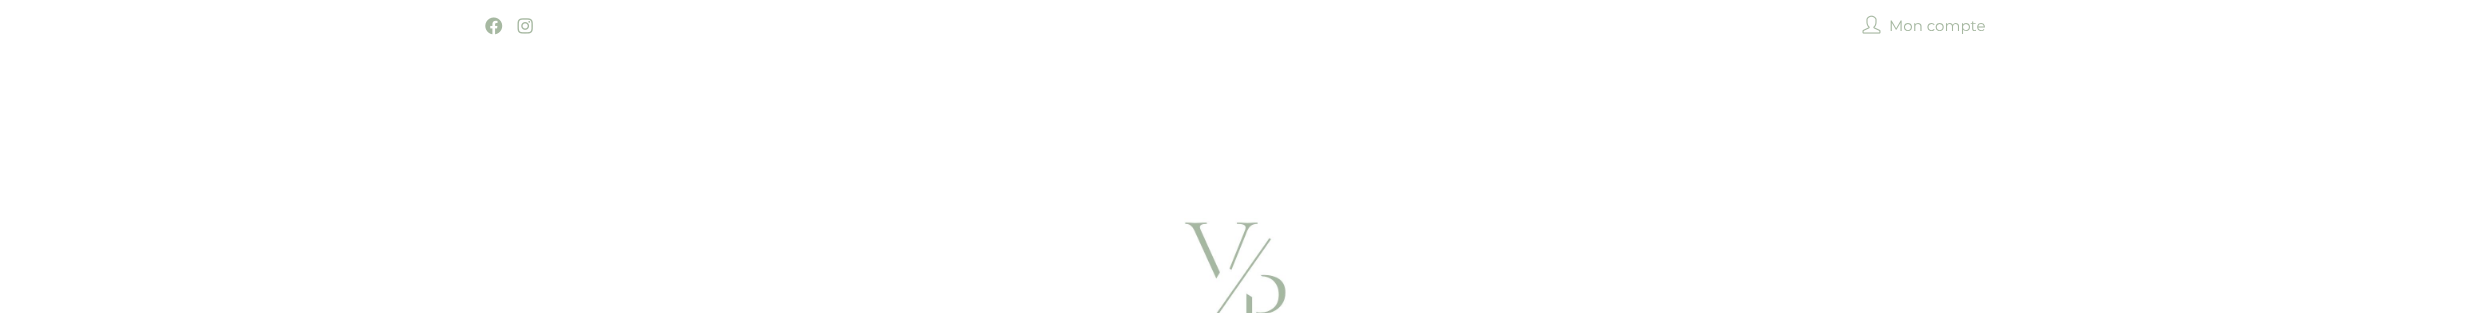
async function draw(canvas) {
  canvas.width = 2469
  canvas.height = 313
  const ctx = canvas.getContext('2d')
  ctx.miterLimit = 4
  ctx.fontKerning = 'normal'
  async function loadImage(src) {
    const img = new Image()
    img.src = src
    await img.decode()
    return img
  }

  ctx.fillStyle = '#fff'
  ctx.fillRect(0, 0, 2469, 313)
  ctx.drawImage(await loadImage('image0.png'), 485, 17, 18, 18)
  ctx.drawImage(await loadImage('image1.png'), 517, 18, 16, 16)
  ctx.drawImage(await loadImage('image2.png'), 1862, 15, 19, 19)
  ctx.font = '15px Montserrat'
  ctx.fillStyle = '#a6b8a1'
  ctx.fillText('Mon compte', 1889, 31)
  ctx.drawImage(await loadImage('image3.png'), 1184, 218, 102, 95)
}

draw(document.querySelector('canvas'))
